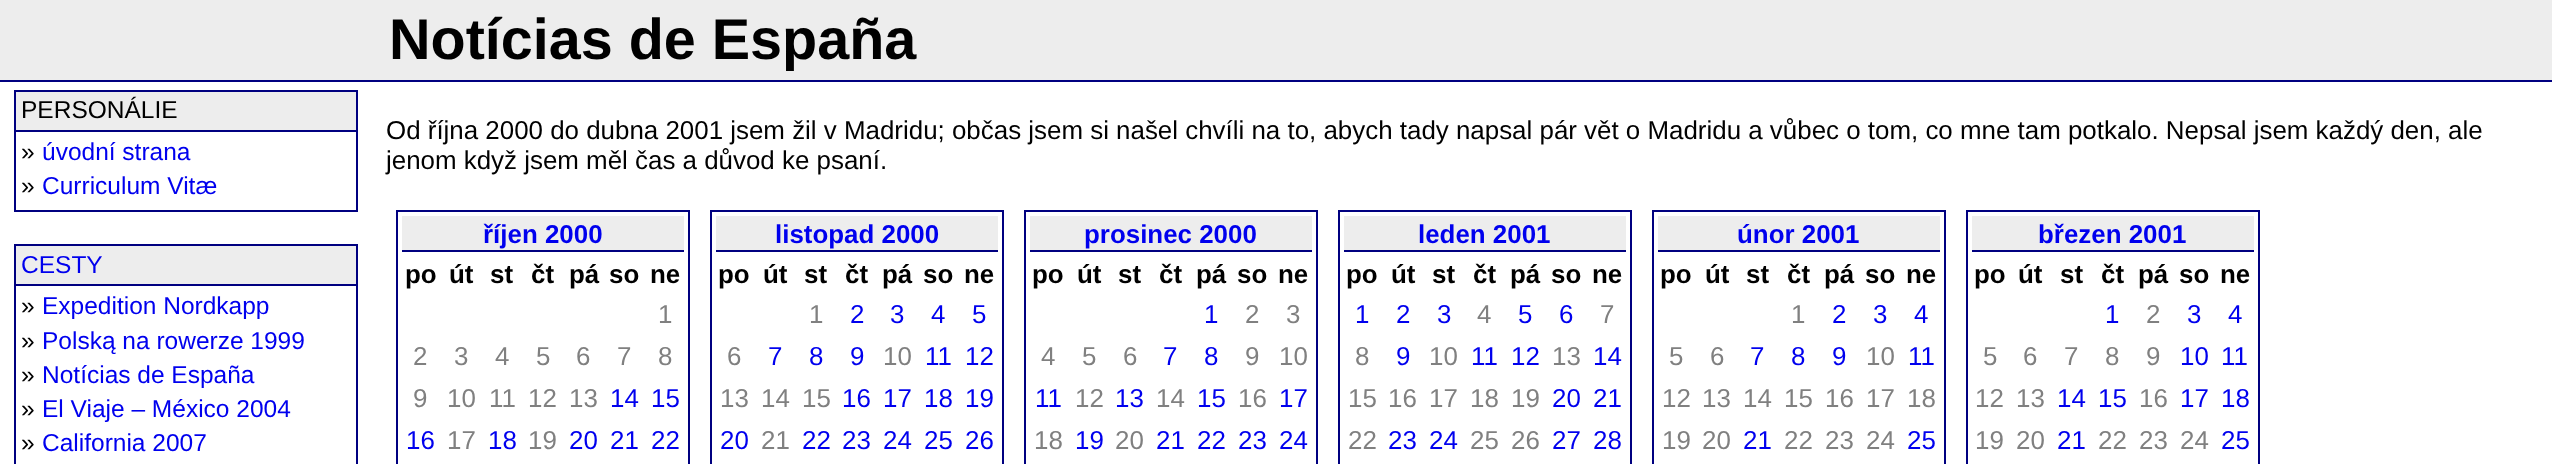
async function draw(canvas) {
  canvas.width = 2552
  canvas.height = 464
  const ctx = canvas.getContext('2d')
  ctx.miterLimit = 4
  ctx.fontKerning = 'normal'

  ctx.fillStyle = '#fff'
  ctx.fillRect(0, 0, 2552, 464)
  ctx.fillStyle = '#ededed'
  ctx.fillRect(0, 0, 2552, 80)
  ctx.fillStyle = '#000080'
  ctx.fillRect(0, 80, 2552, 2)
  ctx.font = 'bold 57.5px Liberation Sans'
  ctx.fillStyle = '#000'
  ctx.fillText('Notícias de España', 389, 59)
  ctx.strokeStyle = '#000080'
  ctx.lineWidth = 2
  ctx.strokeRect(15, 91, 342, 120)
  ctx.fillStyle = '#ededed'
  ctx.fillRect(16, 92, 340, 38)
  ctx.fillStyle = '#000080'
  ctx.fillRect(16, 130, 340, 2)
  ctx.font = '24.5px Liberation Sans'
  ctx.fillStyle = '#000'
  ctx.fillText('PERSONÁLIE', 21, 118)
  ctx.fillText('»', 21, 160)
  ctx.fillStyle = '#00e'
  ctx.fillText('úvodní strana', 42, 160)
  ctx.fillStyle = '#000'
  ctx.fillText('»', 21, 194)
  ctx.fillStyle = '#00e'
  ctx.fillText('Curriculum Vitæ', 42, 194)
  ctx.strokeRect(15, 245, 342, 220)
  ctx.fillStyle = '#ededed'
  ctx.fillRect(16, 246, 340, 38)
  ctx.fillStyle = '#000080'
  ctx.fillRect(16, 284, 340, 2)
  ctx.fillStyle = '#00e'
  ctx.fillText('CESTY', 21, 273)
  ctx.fillStyle = '#000'
  ctx.fillText('»', 21, 314)
  ctx.fillStyle = '#00e'
  ctx.fillText('Expedition Nordkapp', 42, 314)
  ctx.fillStyle = '#000'
  ctx.fillText('»', 21, 349)
  ctx.fillStyle = '#00e'
  ctx.fillText('Polską na rowerze 1999', 42, 349)
  ctx.fillStyle = '#000'
  ctx.fillText('»', 21, 383)
  ctx.fillStyle = '#00e'
  ctx.fillText('Notícias de España', 42, 383)
  ctx.fillStyle = '#000'
  ctx.fillText('»', 21, 417)
  ctx.fillStyle = '#00e'
  ctx.fillText('El Viaje – México 2004', 42, 417)
  ctx.fillStyle = '#000'
  ctx.fillText('»', 21, 451)
  ctx.fillStyle = '#00e'
  ctx.fillText('California 2007', 42, 451)
  ctx.font = '25.92px Liberation Sans'
  ctx.fillStyle = '#000'
  ctx.fillText('Od října 2000 do dubna 2001 jsem žil v Madridu; občas jsem si našel chvíli na to, abych tady napsal pár vět o Madridu a vůbec o tom, co mne tam potkalo. Nepsal jsem každý den, ale', 386, 139)
  ctx.fillText('jenom když jsem měl čas a důvod ke psaní.', 386, 169)
  ctx.strokeRect(397, 211, 292, 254)
  ctx.fillStyle = '#ededed'
  ctx.fillRect(402, 216, 282, 34)
  ctx.fillStyle = '#000080'
  ctx.fillRect(402, 250, 282, 2)
  ctx.font = 'bold 25.92px Liberation Sans'
  ctx.fillStyle = '#00e'
  ctx.fillText('říjen 2000', 483, 243)
  ctx.fillStyle = '#000'
  ctx.fillText('po', 405, 283)
  ctx.fillText('út', 449, 283)
  ctx.fillText('st', 490, 283)
  ctx.fillText('čt', 531, 283)
  ctx.fillText('pá', 569, 283)
  ctx.fillText('so', 609, 283)
  ctx.fillText('ne', 650, 283)
  ctx.font = '25.92px Liberation Sans'
  ctx.fillStyle = '#808080'
  ctx.fillText('1', 658, 323)
  ctx.fillText('2', 413, 365)
  ctx.fillText('3', 454, 365)
  ctx.fillText('4', 495, 365)
  ctx.fillText('5', 536, 365)
  ctx.fillText('6', 576, 365)
  ctx.fillText('7', 617, 365)
  ctx.fillText('8', 658, 365)
  ctx.fillText('9', 413, 407)
  ctx.fillText('10', 447, 407)
  ctx.fillText('11', 489, 407)
  ctx.fillText('12', 528, 407)
  ctx.fillText('13', 569, 407)
  ctx.fillStyle = '#00e'
  ctx.fillText('14', 610, 407)
  ctx.fillText('15', 651, 407)
  ctx.fillText('16', 406, 449)
  ctx.fillStyle = '#808080'
  ctx.fillText('17', 447, 449)
  ctx.fillStyle = '#00e'
  ctx.fillText('18', 488, 449)
  ctx.fillStyle = '#808080'
  ctx.fillText('19', 528, 449)
  ctx.fillStyle = '#00e'
  ctx.fillText('20', 569, 449)
  ctx.fillText('21', 610, 449)
  ctx.fillText('22', 651, 449)
  ctx.strokeRect(711, 211, 292, 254)
  ctx.fillStyle = '#ededed'
  ctx.fillRect(716, 216, 282, 34)
  ctx.fillStyle = '#000080'
  ctx.fillRect(716, 250, 282, 2)
  ctx.font = 'bold 25.92px Liberation Sans'
  ctx.fillStyle = '#00e'
  ctx.fillText('listopad 2000', 775, 243)
  ctx.fillStyle = '#000'
  ctx.fillText('po', 718, 283)
  ctx.fillText('út', 763, 283)
  ctx.fillText('st', 804, 283)
  ctx.fillText('čt', 845, 283)
  ctx.fillText('pá', 882, 283)
  ctx.fillText('so', 923, 283)
  ctx.fillText('ne', 964, 283)
  ctx.font = '25.92px Liberation Sans'
  ctx.fillStyle = '#808080'
  ctx.fillText('1', 809, 323)
  ctx.fillStyle = '#00e'
  ctx.fillText('2', 850, 323)
  ctx.fillText('3', 890, 323)
  ctx.fillText('4', 931, 323)
  ctx.fillText('5', 972, 323)
  ctx.fillStyle = '#808080'
  ctx.fillText('6', 727, 365)
  ctx.fillStyle = '#00e'
  ctx.fillText('7', 768, 365)
  ctx.fillText('8', 809, 365)
  ctx.fillText('9', 850, 365)
  ctx.fillStyle = '#808080'
  ctx.fillText('10', 883, 365)
  ctx.fillStyle = '#00e'
  ctx.fillText('11', 925, 365)
  ctx.fillText('12', 965, 365)
  ctx.fillStyle = '#808080'
  ctx.fillText('13', 720, 407)
  ctx.fillText('14', 761, 407)
  ctx.fillText('15', 802, 407)
  ctx.fillStyle = '#00e'
  ctx.fillText('16', 842, 407)
  ctx.fillText('17', 883, 407)
  ctx.fillText('18', 924, 407)
  ctx.fillText('19', 965, 407)
  ctx.fillText('20', 720, 449)
  ctx.fillStyle = '#808080'
  ctx.fillText('21', 761, 449)
  ctx.fillStyle = '#00e'
  ctx.fillText('22', 802, 449)
  ctx.fillText('23', 842, 449)
  ctx.fillText('24', 883, 449)
  ctx.fillText('25', 924, 449)
  ctx.fillText('26', 965, 449)
  ctx.strokeRect(1025, 211, 292, 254)
  ctx.fillStyle = '#ededed'
  ctx.fillRect(1030, 216, 282, 34)
  ctx.fillStyle = '#000080'
  ctx.fillRect(1030, 250, 282, 2)
  ctx.font = 'bold 25.92px Liberation Sans'
  ctx.fillStyle = '#00e'
  ctx.fillText('prosinec 2000', 1084, 243)
  ctx.fillStyle = '#000'
  ctx.fillText('po', 1032, 283)
  ctx.fillText('út', 1077, 283)
  ctx.fillText('st', 1118, 283)
  ctx.fillText('čt', 1159, 283)
  ctx.fillText('pá', 1196, 283)
  ctx.fillText('so', 1237, 283)
  ctx.fillText('ne', 1278, 283)
  ctx.font = '25.92px Liberation Sans'
  ctx.fillStyle = '#00e'
  ctx.fillText('1', 1204, 323)
  ctx.fillStyle = '#808080'
  ctx.fillText('2', 1245, 323)
  ctx.fillText('3', 1286, 323)
  ctx.fillText('4', 1041, 365)
  ctx.fillText('5', 1082, 365)
  ctx.fillText('6', 1123, 365)
  ctx.fillStyle = '#00e'
  ctx.fillText('7', 1163, 365)
  ctx.fillText('8', 1204, 365)
  ctx.fillStyle = '#808080'
  ctx.fillText('9', 1245, 365)
  ctx.fillText('10', 1279, 365)
  ctx.fillStyle = '#00e'
  ctx.fillText('11', 1035, 407)
  ctx.fillStyle = '#808080'
  ctx.fillText('12', 1075, 407)
  ctx.fillStyle = '#00e'
  ctx.fillText('13', 1115, 407)
  ctx.fillStyle = '#808080'
  ctx.fillText('14', 1156, 407)
  ctx.fillStyle = '#00e'
  ctx.fillText('15', 1197, 407)
  ctx.fillStyle = '#808080'
  ctx.fillText('16', 1238, 407)
  ctx.fillStyle = '#00e'
  ctx.fillText('17', 1279, 407)
  ctx.fillStyle = '#808080'
  ctx.fillText('18', 1034, 449)
  ctx.fillStyle = '#00e'
  ctx.fillText('19', 1075, 449)
  ctx.fillStyle = '#808080'
  ctx.fillText('20', 1115, 449)
  ctx.fillStyle = '#00e'
  ctx.fillText('21', 1156, 449)
  ctx.fillText('22', 1197, 449)
  ctx.fillText('23', 1238, 449)
  ctx.fillText('24', 1279, 449)
  ctx.strokeRect(1339, 211, 292, 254)
  ctx.fillStyle = '#ededed'
  ctx.fillRect(1344, 216, 282, 34)
  ctx.fillStyle = '#000080'
  ctx.fillRect(1344, 250, 282, 2)
  ctx.font = 'bold 25.92px Liberation Sans'
  ctx.fillStyle = '#00e'
  ctx.fillText('leden 2001', 1418, 243)
  ctx.fillStyle = '#000'
  ctx.fillText('po', 1346, 283)
  ctx.fillText('út', 1391, 283)
  ctx.fillText('st', 1432, 283)
  ctx.fillText('čt', 1473, 283)
  ctx.fillText('pá', 1510, 283)
  ctx.fillText('so', 1551, 283)
  ctx.fillText('ne', 1592, 283)
  ctx.font = '25.92px Liberation Sans'
  ctx.fillStyle = '#00e'
  ctx.fillText('1', 1355, 323)
  ctx.fillText('2', 1396, 323)
  ctx.fillText('3', 1437, 323)
  ctx.fillStyle = '#808080'
  ctx.fillText('4', 1477, 323)
  ctx.fillStyle = '#00e'
  ctx.fillText('5', 1518, 323)
  ctx.fillText('6', 1559, 323)
  ctx.fillStyle = '#808080'
  ctx.fillText('7', 1600, 323)
  ctx.fillText('8', 1355, 365)
  ctx.fillStyle = '#00e'
  ctx.fillText('9', 1396, 365)
  ctx.fillStyle = '#808080'
  ctx.fillText('10', 1429, 365)
  ctx.fillStyle = '#00e'
  ctx.fillText('11', 1471, 365)
  ctx.fillText('12', 1511, 365)
  ctx.fillStyle = '#808080'
  ctx.fillText('13', 1552, 365)
  ctx.fillStyle = '#00e'
  ctx.fillText('14', 1593, 365)
  ctx.fillStyle = '#808080'
  ctx.fillText('15', 1348, 407)
  ctx.fillText('16', 1388, 407)
  ctx.fillText('17', 1429, 407)
  ctx.fillText('18', 1470, 407)
  ctx.fillText('19', 1511, 407)
  ctx.fillStyle = '#00e'
  ctx.fillText('20', 1552, 407)
  ctx.fillText('21', 1593, 407)
  ctx.fillStyle = '#808080'
  ctx.fillText('22', 1348, 449)
  ctx.fillStyle = '#00e'
  ctx.fillText('23', 1388, 449)
  ctx.fillText('24', 1429, 449)
  ctx.fillStyle = '#808080'
  ctx.fillText('25', 1470, 449)
  ctx.fillText('26', 1511, 449)
  ctx.fillStyle = '#00e'
  ctx.fillText('27', 1552, 449)
  ctx.fillText('28', 1593, 449)
  ctx.strokeRect(1653, 211, 292, 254)
  ctx.fillStyle = '#ededed'
  ctx.fillRect(1658, 216, 282, 34)
  ctx.fillStyle = '#000080'
  ctx.fillRect(1658, 250, 282, 2)
  ctx.font = 'bold 25.92px Liberation Sans'
  ctx.fillStyle = '#00e'
  ctx.fillText('únor 2001', 1737, 243)
  ctx.fillStyle = '#000'
  ctx.fillText('po', 1660, 283)
  ctx.fillText('út', 1705, 283)
  ctx.fillText('st', 1746, 283)
  ctx.fillText('čt', 1787, 283)
  ctx.fillText('pá', 1824, 283)
  ctx.fillText('so', 1865, 283)
  ctx.fillText('ne', 1906, 283)
  ctx.font = '25.92px Liberation Sans'
  ctx.fillStyle = '#808080'
  ctx.fillText('1', 1791, 323)
  ctx.fillStyle = '#00e'
  ctx.fillText('2', 1832, 323)
  ctx.fillText('3', 1873, 323)
  ctx.fillText('4', 1914, 323)
  ctx.fillStyle = '#808080'
  ctx.fillText('5', 1669, 365)
  ctx.fillText('6', 1710, 365)
  ctx.fillStyle = '#00e'
  ctx.fillText('7', 1750, 365)
  ctx.fillText('8', 1791, 365)
  ctx.fillText('9', 1832, 365)
  ctx.fillStyle = '#808080'
  ctx.fillText('10', 1866, 365)
  ctx.fillStyle = '#00e'
  ctx.fillText('11', 1908, 365)
  ctx.fillStyle = '#808080'
  ctx.fillText('12', 1662, 407)
  ctx.fillText('13', 1702, 407)
  ctx.fillText('14', 1743, 407)
  ctx.fillText('15', 1784, 407)
  ctx.fillText('16', 1825, 407)
  ctx.fillText('17', 1866, 407)
  ctx.fillText('18', 1907, 407)
  ctx.fillText('19', 1662, 449)
  ctx.fillText('20', 1702, 449)
  ctx.fillStyle = '#00e'
  ctx.fillText('21', 1743, 449)
  ctx.fillStyle = '#808080'
  ctx.fillText('22', 1784, 449)
  ctx.fillText('23', 1825, 449)
  ctx.fillText('24', 1866, 449)
  ctx.fillStyle = '#00e'
  ctx.fillText('25', 1907, 449)
  ctx.strokeRect(1967, 211, 292, 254)
  ctx.fillStyle = '#ededed'
  ctx.fillRect(1972, 216, 282, 34)
  ctx.fillStyle = '#000080'
  ctx.fillRect(1972, 250, 282, 2)
  ctx.font = 'bold 25.92px Liberation Sans'
  ctx.fillStyle = '#00e'
  ctx.fillText('březen 2001', 2038, 243)
  ctx.fillStyle = '#000'
  ctx.fillText('po', 1974, 283)
  ctx.fillText('út', 2018, 283)
  ctx.fillText('st', 2060, 283)
  ctx.fillText('čt', 2101, 283)
  ctx.fillText('pá', 2138, 283)
  ctx.fillText('so', 2179, 283)
  ctx.fillText('ne', 2220, 283)
  ctx.font = '25.92px Liberation Sans'
  ctx.fillStyle = '#00e'
  ctx.fillText('1', 2105, 323)
  ctx.fillStyle = '#808080'
  ctx.fillText('2', 2146, 323)
  ctx.fillStyle = '#00e'
  ctx.fillText('3', 2187, 323)
  ctx.fillText('4', 2228, 323)
  ctx.fillStyle = '#808080'
  ctx.fillText('5', 1983, 365)
  ctx.fillText('6', 2023, 365)
  ctx.fillText('7', 2064, 365)
  ctx.fillText('8', 2105, 365)
  ctx.fillText('9', 2146, 365)
  ctx.fillStyle = '#00e'
  ctx.fillText('10', 2180, 365)
  ctx.fillText('11', 2221, 365)
  ctx.fillStyle = '#808080'
  ctx.fillText('12', 1975, 407)
  ctx.fillText('13', 2016, 407)
  ctx.fillStyle = '#00e'
  ctx.fillText('14', 2057, 407)
  ctx.fillText('15', 2098, 407)
  ctx.fillStyle = '#808080'
  ctx.fillText('16', 2139, 407)
  ctx.fillStyle = '#00e'
  ctx.fillText('17', 2180, 407)
  ctx.fillText('18', 2221, 407)
  ctx.fillStyle = '#808080'
  ctx.fillText('19', 1975, 449)
  ctx.fillText('20', 2016, 449)
  ctx.fillStyle = '#00e'
  ctx.fillText('21', 2057, 449)
  ctx.fillStyle = '#808080'
  ctx.fillText('22', 2098, 449)
  ctx.fillText('23', 2139, 449)
  ctx.fillText('24', 2180, 449)
  ctx.fillStyle = '#00e'
  ctx.fillText('25', 2221, 449)
}

draw(document.querySelector('canvas'))
